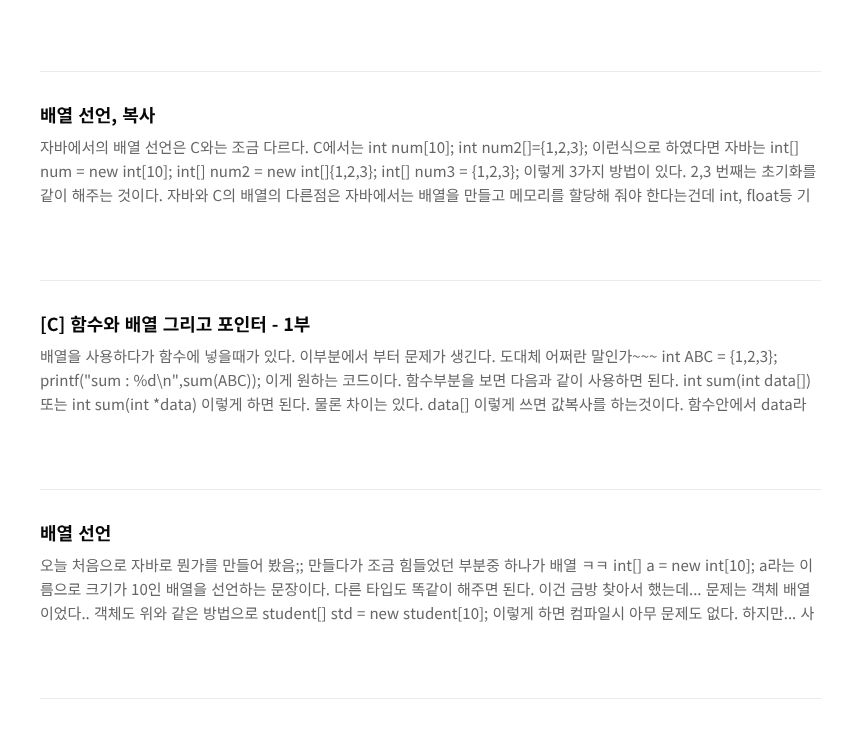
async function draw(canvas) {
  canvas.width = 861
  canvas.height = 745
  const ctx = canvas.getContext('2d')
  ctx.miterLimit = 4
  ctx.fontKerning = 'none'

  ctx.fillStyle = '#fff'
  ctx.fillRect(0, 0, 861, 745)
  ctx.fillStyle = '#ebebeb'
  ctx.fillRect(40, 71, 781, 1)
  ctx.fillRect(40, 280, 781, 1)
  ctx.wordSpacing = '1px'
  ctx.font = 'bold 18px Noto Sans KR'
  ctx.fillStyle = '#080808'
  ctx.fillText('배열 선언, 복사', 40, 122)
  ctx.wordSpacing = '0.75px'
  ctx.font = '15px Noto Sans KR'
  ctx.fillStyle = '#666'
  ctx.fillText('자바에서의 배열 선언은 C와는 조금 다르다. C에서는 int num[10]; int num2[]={1,2,3}; 이런식으로 하였다면 자바는 int[]', 40, 153)
  ctx.wordSpacing = '0.8px'
  ctx.fillText('num = new int[10]; int[] num2 = new int[]{1,2,3}; int[] num3 = {1,2,3}; 이렇게 3가지 방법이 있다. 2,3 번째는 초기화를', 40, 177)
  ctx.fillText('같이 해주는 것이다. 자바와 C의 배열의 다른점은 자바에서는 배열을 만들고 메모리를 할당해 줘야 한다는건데 int, float등 기', 40, 201)
  ctx.fillStyle = '#ebebeb'
  ctx.fillRect(40, 489, 781, 1)
  ctx.wordSpacing = '0.75px'
  ctx.font = 'bold 18px Noto Sans KR'
  ctx.fillStyle = '#080808'
  ctx.fillText('[C] 함수와 배열 그리고 포인터 - 1부', 40, 331)
  ctx.wordSpacing = '0.8px'
  ctx.font = '15px Noto Sans KR'
  ctx.fillStyle = '#666'
  ctx.fillText('배열을 사용하다가 함수에 넣을때가 있다. 이부분에서 부터 문제가 생긴다. 도대체 어쩌란 말인가~~~ int ABC = {1,2,3};', 40, 362)
  ctx.wordSpacing = '0.75px'
  ctx.fillText('printf("sum : %d\\n",sum(ABC)); 이게 원하는 코드이다. 함수부분을 보면 다음과 같이 사용하면 된다. int sum(int data[])', 40, 386)
  ctx.wordSpacing = '0.8px'
  ctx.fillText('또는 int sum(int *data) 이렇게 하면 된다. 물론 차이는 있다. data[] 이렇게 쓰면 값복사를 하는것이다. 함수안에서 data라', 40, 410)
  ctx.fillStyle = '#ebebeb'
  ctx.fillRect(40, 698, 781, 1)
  ctx.wordSpacing = '1px'
  ctx.font = 'bold 18px Noto Sans KR'
  ctx.fillStyle = '#080808'
  ctx.fillText('배열 선언', 40, 540)
  ctx.wordSpacing = '0.8px'
  ctx.font = '15px Noto Sans KR'
  ctx.fillStyle = '#666'
  ctx.fillText('오늘 처음으로 자바로 뭔가를 만들어 봤음;; 만들다가 조금 힘들었던 부분중 하나가 배열 ㅋㅋ int[] a = new int[10]; a라는 이', 40, 571)
  ctx.fillText('름으로 크기가 10인 배열을 선언하는 문장이다. 다른 타입도 똑같이 해주면 된다. 이건 금방 찾아서 했는데... 문제는 객체 배열', 40, 595)
  ctx.fillText('이었다.. 객체도 위와 같은 방법으로 student[] std = new student[10]; 이렇게 하면 컴파일시 아무 문제도 없다. 하지만... 사', 40, 619)
}

draw(document.querySelector('canvas'))
